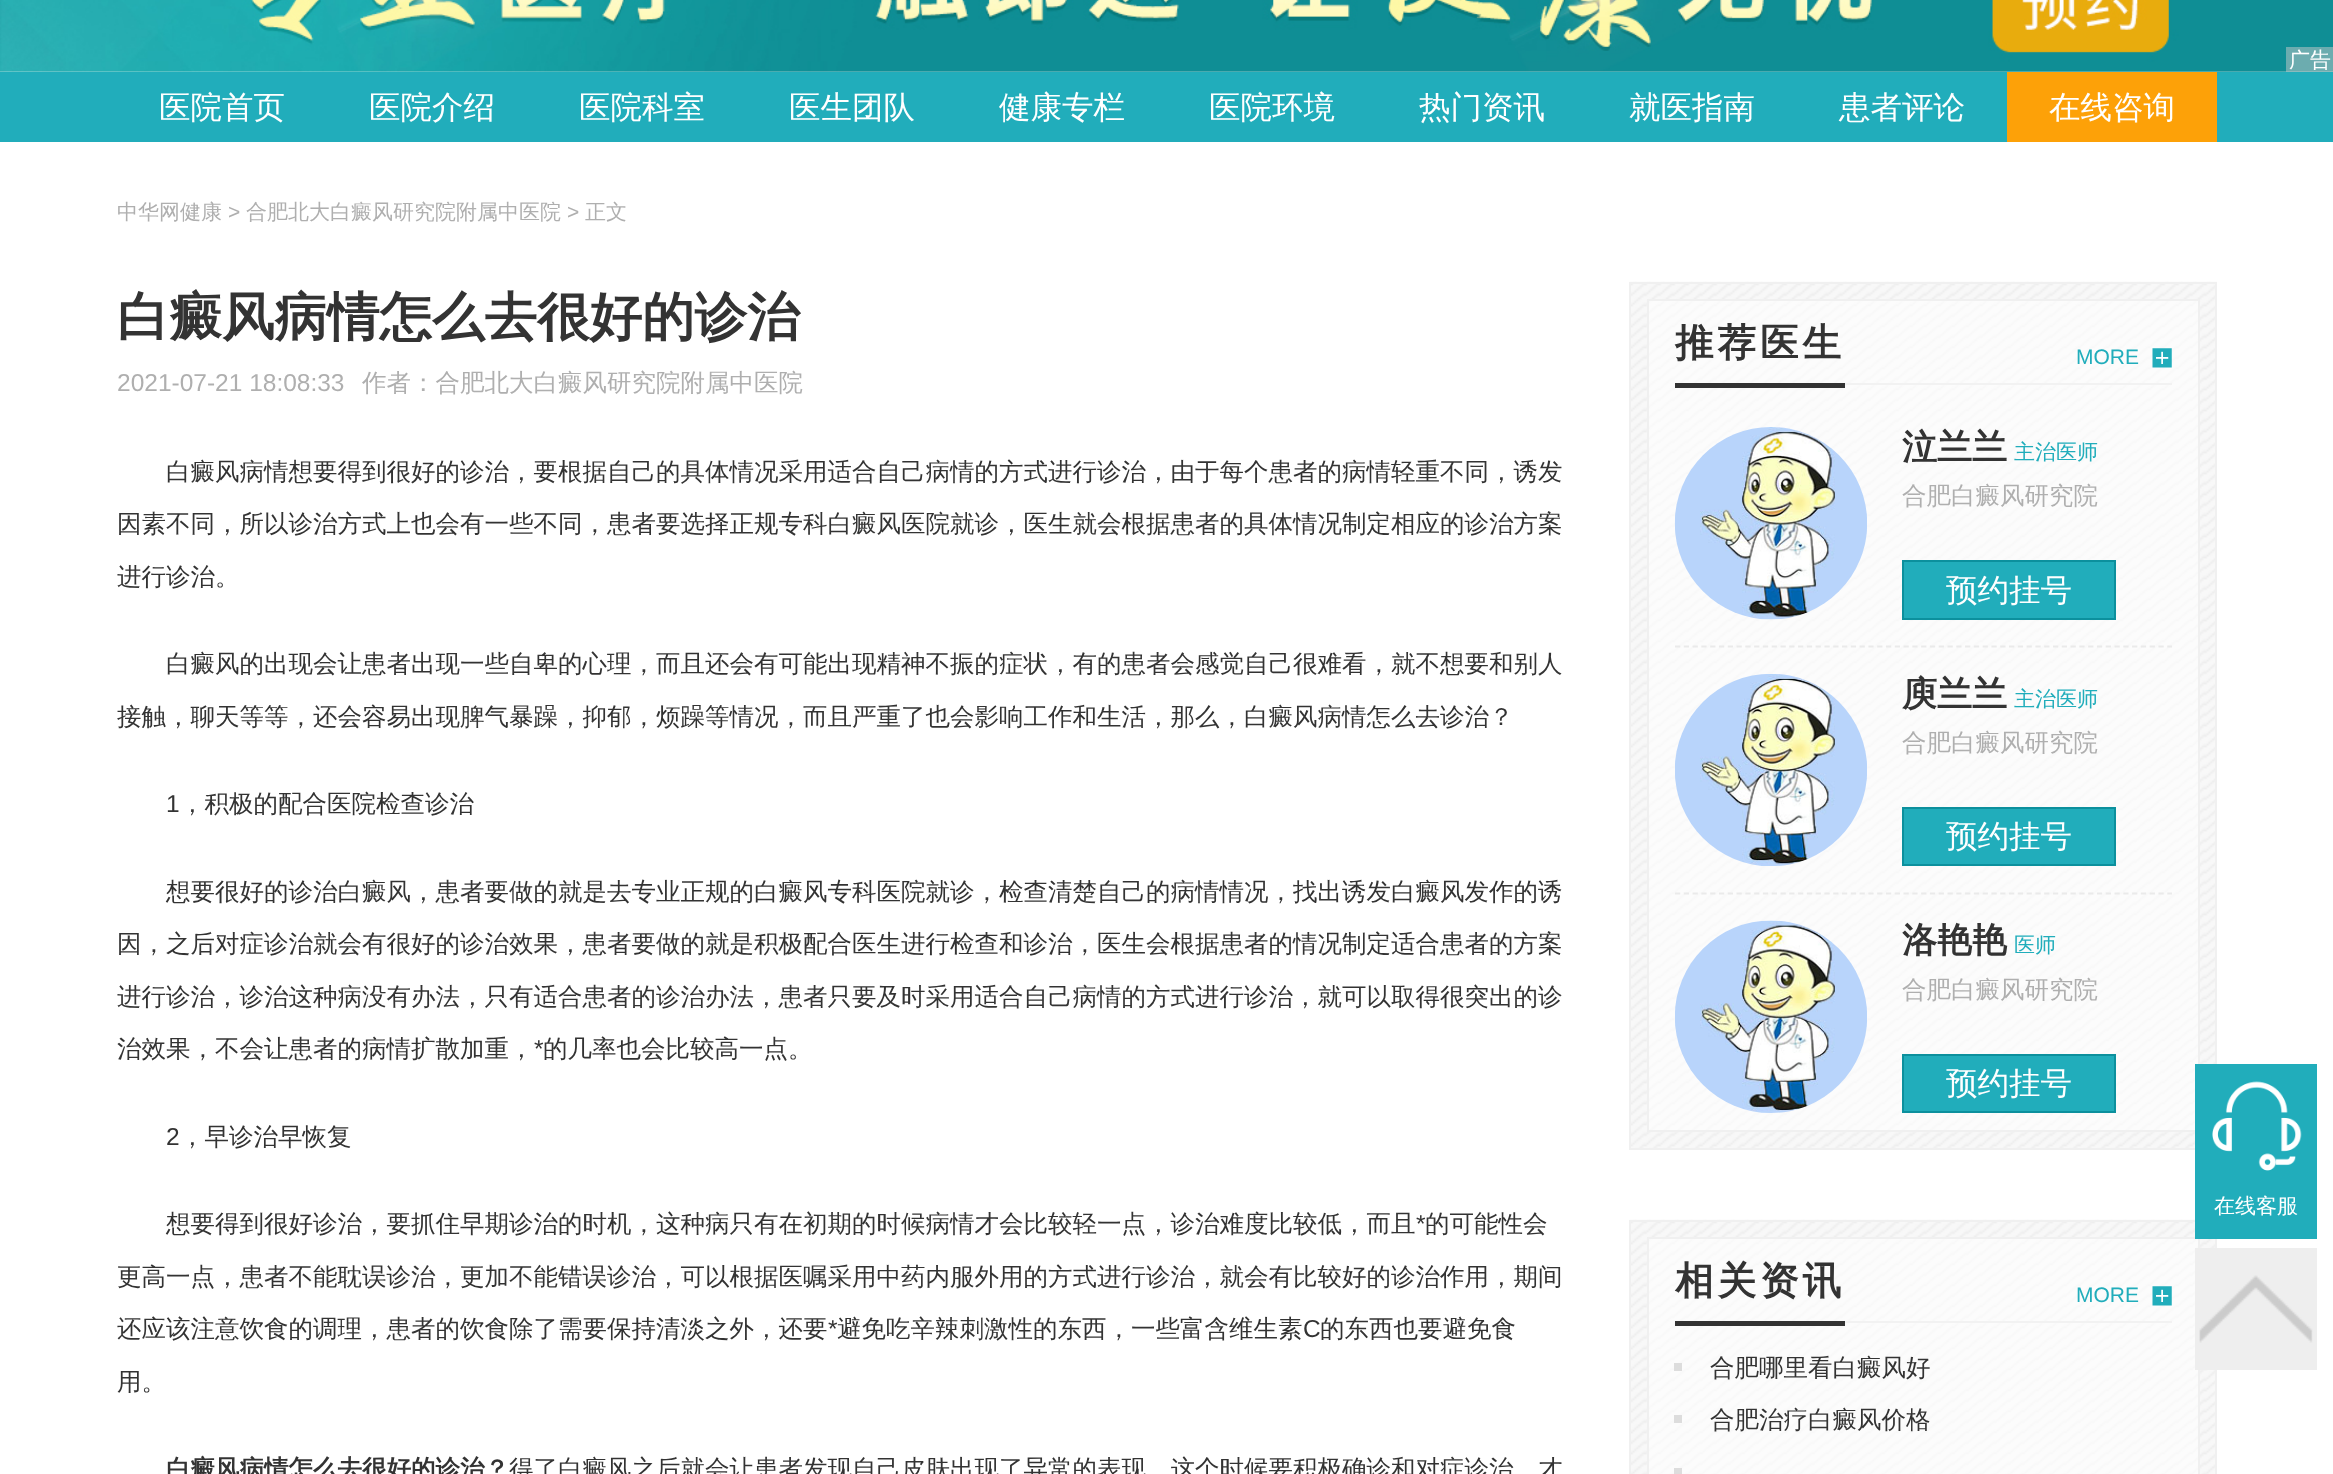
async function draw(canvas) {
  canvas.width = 2333
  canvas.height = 1474
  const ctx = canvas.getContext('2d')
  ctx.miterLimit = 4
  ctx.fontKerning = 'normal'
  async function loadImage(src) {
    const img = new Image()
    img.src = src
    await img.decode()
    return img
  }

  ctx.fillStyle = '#fff'
  ctx.fillRect(0, 0, 2333, 1474)
  ctx.drawImage(await loadImage('image0.png'), 0, 0, 2333, 72)
  ctx.fillStyle = '#c9c9c980'
  ctx.fillRect(2286, 47, 47, 25)
  ctx.font = '500 21px WenQuanYi Zen Hei'
  ctx.fillStyle = '#fff'
  ctx.fillText('广告', 2289, 67)
  ctx.fillStyle = '#21adbb'
  ctx.fillRect(0, 72, 2333, 70)
  ctx.font = '500 31.5px WenQuanYi Zen Hei'
  ctx.fillStyle = '#fff'
  ctx.fillText('医院首页', 159, 118)
  ctx.fillText('医院介绍', 369, 118)
  ctx.fillText('医院科室', 579, 118)
  ctx.fillText('医生团队', 789, 118)
  ctx.fillText('健康专栏', 999, 118)
  ctx.fillText('医院环境', 1209, 118)
  ctx.fillText('热门资讯', 1419, 118)
  ctx.fillText('就医指南', 1629, 118)
  ctx.fillText('患者评论', 1839, 118)
  ctx.fillStyle = '#fda108'
  ctx.fillRect(2007, 72, 210, 70)
  ctx.fillStyle = '#fff'
  ctx.fillText('在线咨询', 2049, 118)
  ctx.font = '500 21px WenQuanYi Zen Hei'
  ctx.fillStyle = '#afafaf'
  ctx.fillText('中华网健康', 117, 219)
  ctx.font = '21px Liberation Sans'
  ctx.fillText('>', 228, 219)
  ctx.font = '500 21px WenQuanYi Zen Hei'
  ctx.fillText('合肥北大白癜风研究院附属中医院', 246, 219)
  ctx.font = '21px Liberation Sans'
  ctx.fillText('>', 567, 219)
  ctx.font = '500 21px WenQuanYi Zen Hei'
  ctx.fillText('正文', 585, 219)
  ctx.font = 'bold 52.5px WenQuanYi Zen Hei'
  ctx.fillStyle = '#333'
  ctx.fillText('白癜风病情怎么去很好的诊治', 117, 335)
  ctx.font = '24.5px Liberation Sans'
  ctx.fillStyle = '#afafaf'
  ctx.fillText('2021-07-21 18:08:33', 117, 391)
  ctx.font = '500 24.5px WenQuanYi Zen Hei'
  ctx.fillText('作者：合肥北大白癜风研究院附属中医院', 362, 391)
  ctx.fillStyle = '#333'
  ctx.fillText('白癜风病情想要得到很好的诊治，要根据自己的具体情况采用适合自己病情的方式进行诊治，由于每个患者的病情轻重不同，诱发', 166, 480)
  ctx.fillText('因素不同，所以诊治方式上也会有一些不同，患者要选择正规专科白癜风医院就诊，医生就会根据患者的具体情况制定相应的诊治方案', 117, 532)
  ctx.fillText('进行诊治。', 117, 585)
  ctx.fillText('白癜风的出现会让患者出现一些自卑的心理，而且还会有可能出现精神不振的症状，有的患者会感觉自己很难看，就不想要和别人', 166, 672)
  ctx.fillText('接触，聊天等等，还会容易出现脾气暴躁，抑郁，烦躁等情况，而且严重了也会影响工作和生活，那么，白癜风病情怎么去诊治？', 117, 725)
  ctx.font = '24.5px Liberation Sans'
  ctx.fillText('1', 166, 812)
  ctx.font = '500 24.5px WenQuanYi Zen Hei'
  ctx.fillText('，积极的配合医院检查诊治', 180, 812)
  ctx.fillText('想要很好的诊治白癜风，患者要做的就是去专业正规的白癜风专科医院就诊，检查清楚自己的病情情况，找出诱发白癜风发作的诱', 166, 900)
  ctx.fillText('因，之后对症诊治就会有很好的诊治效果，患者要做的就是积极配合医生进行检查和诊治，医生会根据患者的情况制定适合患者的方案', 117, 952)
  ctx.fillText('进行诊治，诊治这种病没有办法，只有适合患者的诊治办法，患者只要及时采用适合自己病情的方式进行诊治，就可以取得很突出的诊', 117, 1005)
  ctx.fillText('治效果，不会让患者的病情扩散加重，', 117, 1057)
  ctx.font = '24.5px Liberation Sans'
  ctx.fillText('*', 534, 1057)
  ctx.font = '500 24.5px WenQuanYi Zen Hei'
  ctx.fillText('的几率也会比较高一点。', 543, 1057)
  ctx.font = '24.5px Liberation Sans'
  ctx.fillText('2', 166, 1145)
  ctx.font = '500 24.5px WenQuanYi Zen Hei'
  ctx.fillText('，早诊治早恢复', 180, 1145)
  ctx.fillText('想要得到很好诊治，要抓住早期诊治的时机，这种病只有在初期的时候病情才会比较轻一点，诊治难度比较低，而且', 166, 1232)
  ctx.font = '24.5px Liberation Sans'
  ctx.fillText('*', 1416, 1232)
  ctx.font = '500 24.5px WenQuanYi Zen Hei'
  ctx.fillText('的可能性会', 1425, 1232)
  ctx.fillText('更高一点，患者不能耽误诊治，更加不能错误诊治，可以根据医嘱采用中药内服外用的方式进行诊治，就会有比较好的诊治作用，期间', 117, 1285)
  ctx.fillText('还应该注意饮食的调理，患者的饮食除了需要保持清淡之外，还要', 117, 1337)
  ctx.font = '24.5px Liberation Sans'
  ctx.fillText('*', 828, 1337)
  ctx.font = '500 24.5px WenQuanYi Zen Hei'
  ctx.fillText('避免吃辛辣刺激性的东西，一些富含维生素', 837, 1337)
  ctx.font = '24.5px Liberation Sans'
  ctx.fillText('C', 1303, 1337)
  ctx.font = '500 24.5px WenQuanYi Zen Hei'
  ctx.fillText('的东西也要避免食', 1320, 1337)
  ctx.fillText('用。', 117, 1390)
  ctx.font = 'bold 24.5px WenQuanYi Zen Hei'
  ctx.fillText('白癜风病情怎么去很好的诊治？', 166, 1477)
  ctx.font = '500 24.5px WenQuanYi Zen Hei'
  ctx.fillText('得了白癜风之后就会让患者发现自己皮肤出现了异常的表现，这个时候要积极确诊和对症诊治，才', 509, 1477)
  ctx.drawImage(await loadImage('image1.png'), 1629, 281, 588, 867)
  ctx.strokeStyle = '#f0f0f0'
  ctx.lineWidth = 2
  ctx.strokeRect(1630, 283, 586, 866)
  ctx.strokeRect(1648, 300, 551, 831)
  ctx.fillStyle = '#f2f2f2'
  ctx.fillRect(1845, 383, 327, 2)
  ctx.fillStyle = '#333'
  ctx.fillRect(1675, 383, 170, 5)
  ctx.letterSpacing = '4px'
  ctx.font = 'bold 38.5px WenQuanYi Zen Hei'
  ctx.fillText('推荐医生', 1675, 356)
  ctx.letterSpacing = '0px'
  ctx.font = '21px Liberation Sans'
  ctx.fillStyle = '#21adbb'
  ctx.fillText('MORE', 2076, 364)
  ctx.drawImage(await loadImage('image2.png'), 2152, 348, 20, 20)
  ctx.drawImage(await loadImage('image3.png'), 1674, 427, 193, 193)
  ctx.font = 'bold 35px WenQuanYi Zen Hei'
  ctx.fillStyle = '#333'
  ctx.fillText('泣兰兰', 1902, 459)
  ctx.font = '500 21px WenQuanYi Zen Hei'
  ctx.fillStyle = '#21adbb'
  ctx.fillText('主治医师', 2014, 459)
  ctx.font = '500 24.5px WenQuanYi Zen Hei'
  ctx.fillStyle = '#afafaf'
  ctx.fillText('合肥白癜风研究院', 1902, 504)
  ctx.fillStyle = '#21adbb'
  ctx.beginPath()
  ctx.rect(1903, 561, 212, 58)
  ctx.fill()
  ctx.strokeStyle = '#0c909d'
  ctx.stroke()
  ctx.font = '500 31.5px WenQuanYi Zen Hei'
  ctx.fillStyle = '#fff'
  ctx.fillText('预约挂号', 1946, 601)
  ctx.beginPath()
  ctx.moveTo(1675, 646.5)
  ctx.lineTo(2172, 646.5)
  ctx.strokeStyle = '#eaeaea'
  ctx.lineWidth = 1.8
  ctx.setLineDash([5.25, 3.54])
  ctx.stroke()
  ctx.drawImage(await loadImage('image4.png'), 1675, 674, 192, 192)
  ctx.font = 'bold 35px WenQuanYi Zen Hei'
  ctx.fillStyle = '#333'
  ctx.fillText('庾兰兰', 1902, 706)
  ctx.font = '500 21px WenQuanYi Zen Hei'
  ctx.fillStyle = '#21adbb'
  ctx.fillText('主治医师', 2014, 706)
  ctx.font = '500 24.5px WenQuanYi Zen Hei'
  ctx.fillStyle = '#afafaf'
  ctx.fillText('合肥白癜风研究院', 1902, 751)
  ctx.fillStyle = '#21adbb'
  ctx.beginPath()
  ctx.rect(1903, 808, 212, 57)
  ctx.fill()
  ctx.strokeStyle = '#0c909d'
  ctx.lineWidth = 2
  ctx.setLineDash([])
  ctx.stroke()
  ctx.font = '500 31.5px WenQuanYi Zen Hei'
  ctx.fillStyle = '#fff'
  ctx.fillText('预约挂号', 1946, 847)
  ctx.beginPath()
  ctx.moveTo(1675, 893.5)
  ctx.lineTo(2172, 893.5)
  ctx.strokeStyle = '#eaeaea'
  ctx.lineWidth = 1.8
  ctx.setLineDash([5.25, 3.54])
  ctx.stroke()
  ctx.drawImage(await loadImage('image5.png'), 1675, 920, 192, 193)
  ctx.font = 'bold 35px WenQuanYi Zen Hei'
  ctx.fillStyle = '#333'
  ctx.fillText('洛艳艳', 1902, 952)
  ctx.font = '500 21px WenQuanYi Zen Hei'
  ctx.fillStyle = '#21adbb'
  ctx.fillText('医师', 2014, 952)
  ctx.font = '500 24.5px WenQuanYi Zen Hei'
  ctx.fillStyle = '#afafaf'
  ctx.fillText('合肥白癜风研究院', 1902, 998)
  ctx.fillStyle = '#21adbb'
  ctx.beginPath()
  ctx.rect(1903, 1055, 212, 57)
  ctx.fill()
  ctx.strokeStyle = '#0c909d'
  ctx.lineWidth = 2
  ctx.setLineDash([])
  ctx.stroke()
  ctx.font = '500 31.5px WenQuanYi Zen Hei'
  ctx.fillStyle = '#fff'
  ctx.fillText('预约挂号', 1946, 1094)
  ctx.drawImage(await loadImage('image6.png'), 1629, 1219, 586, 255)
  ctx.strokeStyle = '#f0f0f0'
  ctx.strokeRect(1630, 1221, 586, 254)
  ctx.fillStyle = '#ffffff99'
  ctx.beginPath()
  ctx.rect(1648, 1238, 551, 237)
  ctx.fill()
  ctx.stroke()
  ctx.fillStyle = '#f2f2f2'
  ctx.fillRect(1845, 1321, 327, 2)
  ctx.fillStyle = '#333'
  ctx.fillRect(1675, 1321, 170, 5)
  ctx.letterSpacing = '4px'
  ctx.font = 'bold 38.5px WenQuanYi Zen Hei'
  ctx.fillText('相关资讯', 1675, 1294)
  ctx.letterSpacing = '0px'
  ctx.font = '21px Liberation Sans'
  ctx.fillStyle = '#21adbb'
  ctx.fillText('MORE', 2076, 1302)
  ctx.drawImage(await loadImage('image2.png'), 2152, 1286, 20, 20)
  ctx.fillStyle = '#ddd'
  ctx.fillRect(1674, 1363, 8, 8)
  ctx.font = '500 24.5px WenQuanYi Zen Hei'
  ctx.fillStyle = '#333'
  ctx.fillText('合肥哪里看白癜风好', 1710, 1376)
  ctx.fillStyle = '#ddd'
  ctx.fillRect(1674, 1415, 8, 8)
  ctx.fillStyle = '#333'
  ctx.fillText('合肥治疗白癜风价格', 1710, 1428)
  ctx.fillStyle = '#ddd'
  ctx.fillRect(1674, 1468, 8, 6)
  ctx.fillStyle = '#21adbb'
  ctx.fillRect(2195, 1064, 122, 175)
  ctx.drawImage(await loadImage('image7.png'), 2212, 1081, 90, 90)
  ctx.font = '500 21px WenQuanYi Zen Hei'
  ctx.fillStyle = '#fff'
  ctx.fillText('在线客服', 2214, 1213)
  ctx.fillStyle = '#eee'
  ctx.fillRect(2195, 1248, 122, 122)
  ctx.drawImage(await loadImage('image8.png'), 2199, 1275, 114, 68)
}

draw(document.querySelector('canvas'))
